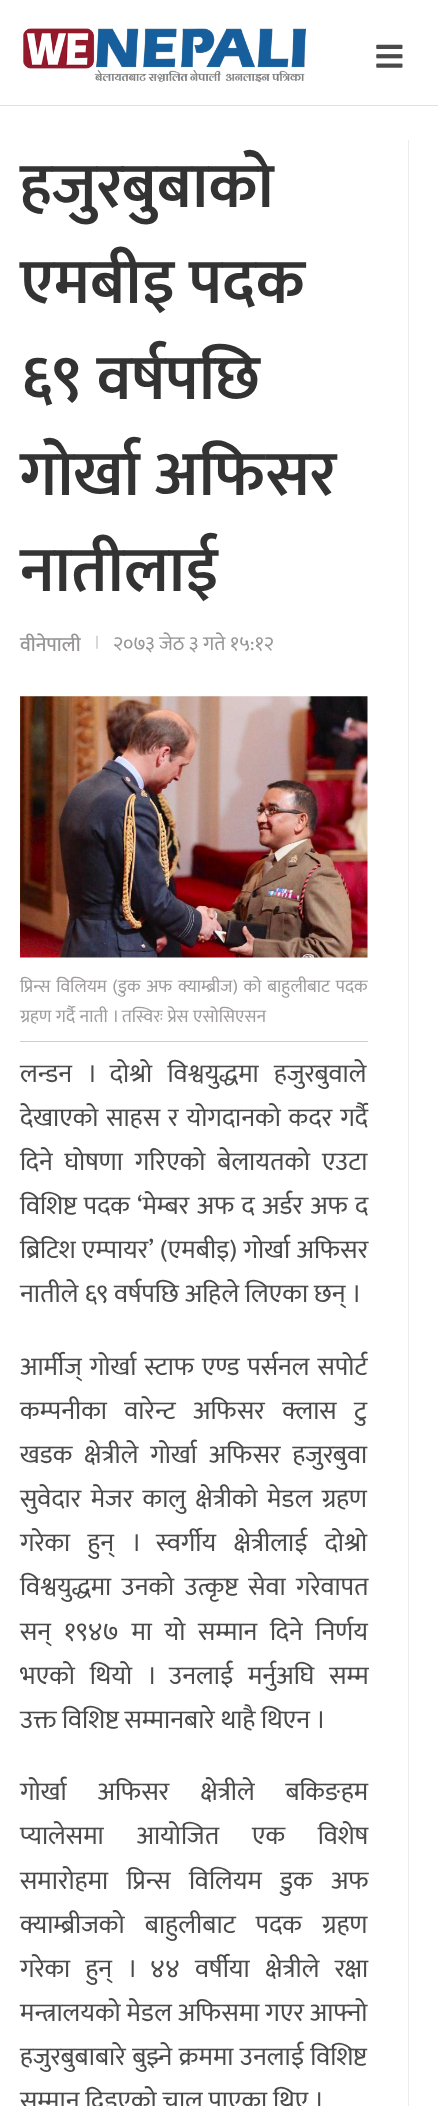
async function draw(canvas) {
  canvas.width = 438
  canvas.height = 2106
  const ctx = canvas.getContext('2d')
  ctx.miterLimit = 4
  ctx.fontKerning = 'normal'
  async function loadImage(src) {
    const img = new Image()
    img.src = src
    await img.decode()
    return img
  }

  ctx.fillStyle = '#fff'
  ctx.fillRect(0, 0, 438, 2106)
  ctx.fillStyle = '#d4e5f0'
  ctx.fillRect(0, 105, 438, 1)
  ctx.drawImage(await loadImage('image0.png'), 23, 28, 283, 55)
  ctx.drawImage(await loadImage('image1.png'), 376, 44, 27, 24)
  ctx.fillStyle = '#ececec'
  ctx.fillRect(408, 140, 1, 1966)
  ctx.font = '600 64px Mukta'
  ctx.fillStyle = '#333'
  ctx.fillText('हजुरबुबाको', 20, 207)
  ctx.fillText('एमबीइ पदक', 20, 303)
  ctx.fillText('६९ वर्षपछि', 20, 399)
  ctx.fillText('गोर्खा अफिसर', 20, 495)
  ctx.fillText('नातीलाई', 20, 591)
  ctx.font = '500 20px Mukta'
  ctx.fillStyle = '#979494'
  ctx.fillText('वीनेपाली', 20, 651)
  ctx.font = '600 14px Karma'
  ctx.fillStyle = '#bfbfbf'
  ctx.fillText('|', 95, 646)
  ctx.font = '20px Mukta'
  ctx.fillStyle = '#979494'
  ctx.fillText('२०७३ जेठ ३ गते १५:१२', 113, 650)
  ctx.drawImage(await loadImage('image2.png'), 20, 696, 348, 262)
  ctx.fillStyle = '#d1cdcd'
  ctx.fillRect(20, 1041, 348, 1)
  ctx.wordSpacing = '1.75px'
  ctx.font = '18px Mukta'
  ctx.fillStyle = '#9e9b9b'
  ctx.fillText('प्रिन्स विलियम (डुक अफ क्याम्ब्रीज) को बाहुलीबाट पदक', 20, 992)
  ctx.wordSpacing = '0.5px'
  ctx.fillText('ग्रहण गर्दै नाती । तस्विरः प्रेस एसोसिएसन', 20, 1022)
  ctx.wordSpacing = '9.5px'
  ctx.font = '26px Mukta'
  ctx.fillStyle = '#4a4a4a'
  ctx.fillText('लन्डन । दोश्रो विश्वयुद्धमा हजुरबुवाले', 20, 1082)
  ctx.wordSpacing = '2px'
  ctx.fillText('देखाएको साहस र योगदानको कदर गर्दै', 20, 1126)
  ctx.wordSpacing = '6px'
  ctx.fillText('दिने घोषणा गरिएको बेलायतको एउटा', 20, 1170)
  ctx.wordSpacing = '1.5px'
  ctx.fillText('विशिष्ट पदक ‘मेम्बर अफ द अर्डर अफ द', 20, 1214)
  ctx.wordSpacing = '0.5px'
  ctx.fillText('ब्रिटिश एम्पायर’ (एमबीइ) गोर्खा अफिसर', 20, 1258)
  ctx.wordSpacing = '0px'
  ctx.fillText('नातीले ६९ वर्षपछि अहिले लिएका छन् ।', 20, 1302)
  ctx.wordSpacing = '2.25px'
  ctx.fillText('आर्मीज् गोर्खा स्टाफ एण्ड पर्सनल सपोर्ट', 20, 1375)
  ctx.wordSpacing = '11.5px'
  ctx.fillText('कम्पनीका वारेन्ट अफिसर क्लास टु', 20, 1419)
  ctx.wordSpacing = '6px'
  ctx.fillText('खडक क्षेत्रीले गोर्खा अफिसर हजुरबुवा', 20, 1463)
  ctx.wordSpacing = '3.5px'
  ctx.fillText('सुवेदार मेजर कालु क्षेत्रीको मेडल ग्रहण', 20, 1507)
  ctx.wordSpacing = '11.5px'
  ctx.fillText('गरेका हुन् । स्वर्गीय क्षेत्रीलाई दोश्रो', 20, 1551)
  ctx.wordSpacing = '4.5px'
  ctx.fillText('विश्वयुद्धमा उनको उत्कृष्ट सेवा गरेवापत', 20, 1595)
  ctx.wordSpacing = '6.75px'
  ctx.fillText('सन् १९४७ मा यो सम्मान दिने निर्णय', 20, 1640)
  ctx.wordSpacing = '9px'
  ctx.fillText('भएको थियो । उनलाई मर्नुअघि सम्म', 20, 1684)
  ctx.wordSpacing = '0px'
  ctx.fillText('उक्त विशिष्ट सम्मानबारे थाहै थिएन ।', 20, 1728)
  ctx.wordSpacing = '25px'
  ctx.fillText('गोर्खा अफिसर क्षेत्रीले बकिङहम', 20, 1800)
  ctx.wordSpacing = '27px'
  ctx.fillText('प्यालेसमा आयोजित एक विशेष', 20, 1844)
  ctx.wordSpacing = '12.5px'
  ctx.fillText('समारोहमा प्रिन्स विलियम डुक अफ', 20, 1889)
  ctx.wordSpacing = '14.5px'
  ctx.fillText('क्याम्ब्रीजको बाहुलीबाट पदक ग्रहण', 20, 1933)
  ctx.wordSpacing = '9.5px'
  ctx.fillText('गरेका हुन् । ४४ वर्षीया क्षेत्रीले रक्षा', 20, 1977)
  ctx.wordSpacing = '0px'
  ctx.fillText('मन्त्रालयको मेडल अफिसमा गएर आफ्नो', 20, 2021)
  ctx.wordSpacing = '0.5px'
  ctx.fillText('हजुरबुबाबारे बुझ्ने क्रममा उनलाई विशिष्ट', 20, 2065)
  ctx.wordSpacing = '0px'
  ctx.fillText('सम्मान दिइएको चाल पाएका थिए ।', 20, 2109)
}

draw(document.querySelector('canvas'))
